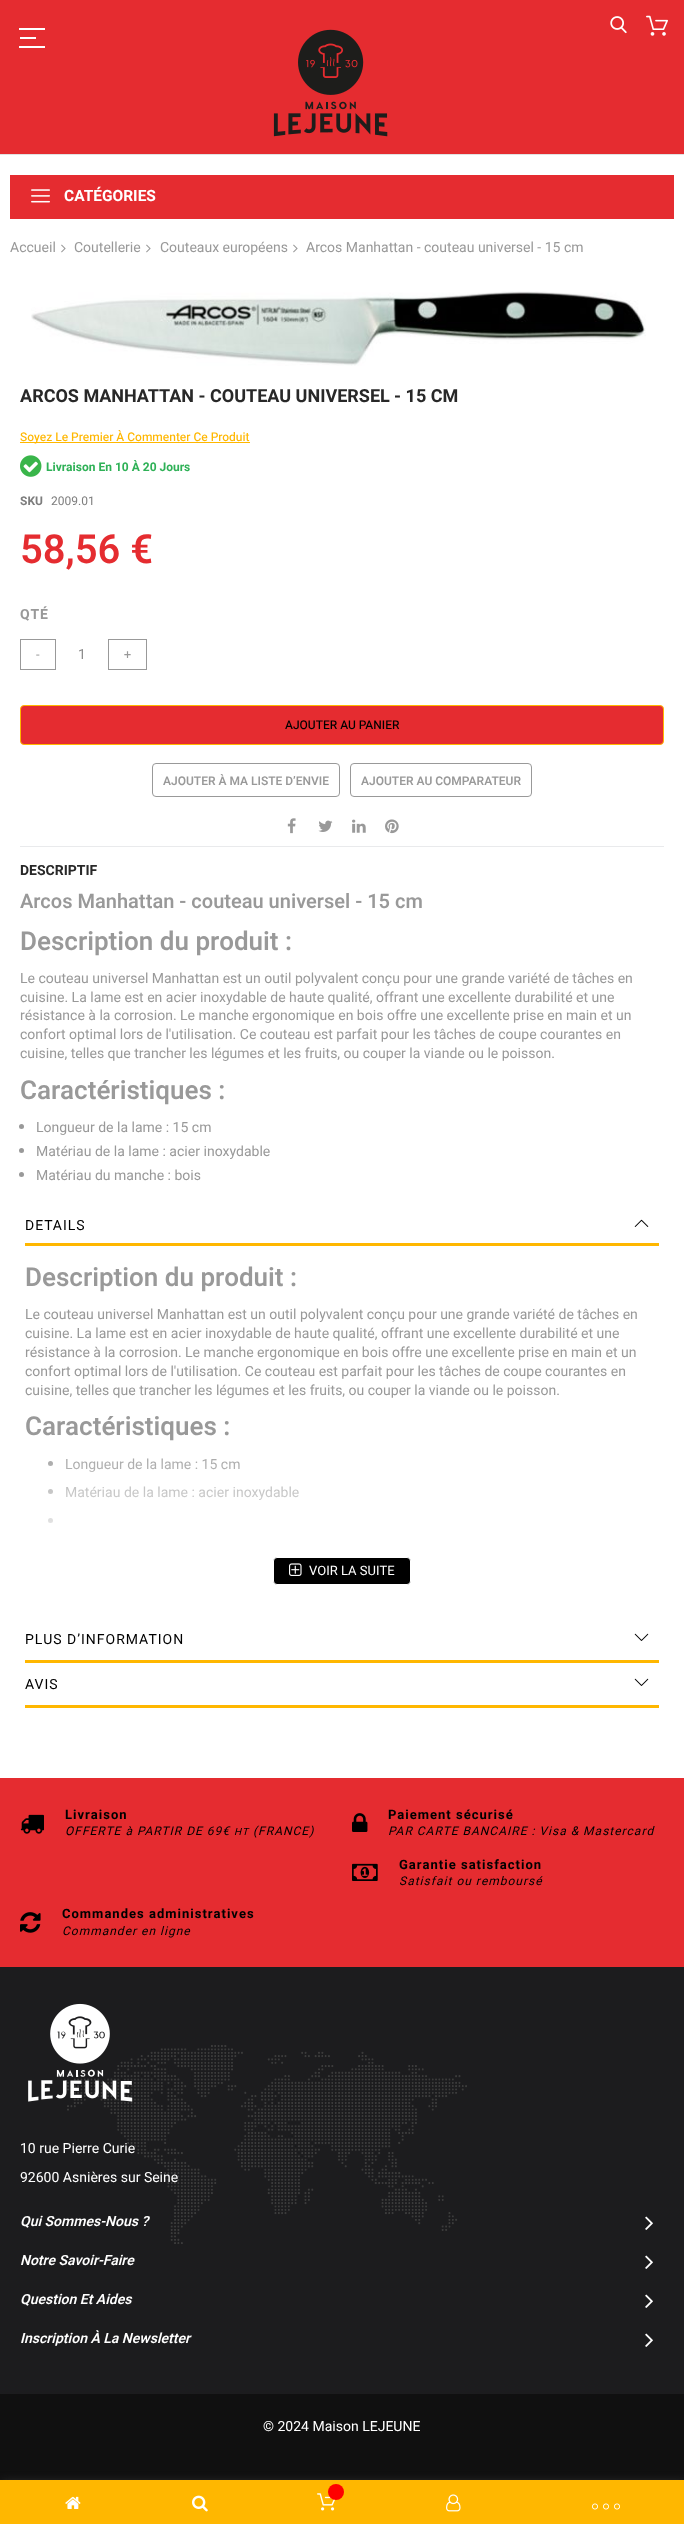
async function draw(canvas) {
  canvas.width = 684
  canvas.height = 2524
  const ctx = canvas.getContext('2d')
  ctx.miterLimit = 4
  ctx.fontKerning = 'normal'
  async function loadImage(src) {
    const img = new Image()
    img.src = src
    await img.decode()
    return img
  }
  let gradient

  ctx.fillStyle = '#fff'
  ctx.fillRect(0, 0, 684, 2524)
  ctx.fillStyle = '#e52c30'
  ctx.fillRect(0, 0, 684, 154)
  ctx.fillStyle = '#e1e1e1'
  ctx.fillRect(0, 154, 684, 1)
  ctx.drawImage(await loadImage('image0.png'), 610, 16, 17, 18)
  ctx.drawImage(await loadImage('image1.png'), 646, 15, 22, 21)
  ctx.fillStyle = '#fff'
  ctx.fillRect(19, 28, 26, 2)
  ctx.fillRect(19, 46, 26, 2)
  ctx.fillRect(20, 37, 16, 2)
  ctx.drawImage(await loadImage('image2.png'), 273, 29, 115, 108)
  ctx.fillStyle = '#e52c30'
  ctx.fillRect(10, 175, 664, 44)
  ctx.drawImage(await loadImage('image3.png'), 31, 189, 19, 14)
  ctx.font = 'bold 15.5px Heebo'
  ctx.fillStyle = '#fff'
  ctx.fillText('CATÉGORIES', 64, 201)
  ctx.font = '14px Heebo'
  ctx.fillStyle = '#999'
  ctx.fillText('Accueil', 10, 252)
  ctx.drawImage(await loadImage('image4.png'), 61, 244, 5, 9)
  ctx.fillText('Coutellerie', 74, 252)
  ctx.drawImage(await loadImage('image4.png'), 146, 244, 5, 9)
  ctx.fillText('Couteaux européens', 160, 252)
  ctx.drawImage(await loadImage('image4.png'), 293, 244, 5, 9)
  ctx.fillText('Arcos Manhattan - couteau universel - 15 cm', 306, 252)
  ctx.drawImage(await loadImage('image5.png'), 31, 291, 615, 75)
  ctx.font = 'bold 18px Heebo'
  ctx.fillStyle = '#282828'
  ctx.fillText('ARCOS MANHATTAN - COUTEAU UNIVERSEL - 15 CM', 20, 402)
  ctx.fillStyle = '#ffb700'
  ctx.fillRect(20, 442, 230, 1)
  ctx.font = '500 12px Heebo'
  ctx.fillText('Soyez Le Premier À Commenter Ce Produit', 20, 441)
  ctx.drawImage(await loadImage('image6.png'), 20, 455, 22, 22)
  ctx.font = 'bold 12px Heebo'
  ctx.fillStyle = '#2fb157'
  ctx.fillText('Livraison En 10 À 20 Jours', 46, 471)
  ctx.fillStyle = '#7d7d7d'
  ctx.fillText('SKU', 20, 505)
  ctx.font = '12px Heebo'
  ctx.fillText('2009.01', 51, 505)
  ctx.font = '600 40px Heebo'
  ctx.fillStyle = '#e52c30'
  ctx.fillText('58,56 €', 20, 563)
  ctx.letterSpacing = '1px'
  ctx.font = 'bold 14px Heebo'
  ctx.fillStyle = '#999'
  ctx.fillText('QTÉ', 20, 619)
  ctx.strokeStyle = '#999'
  ctx.strokeRect(20.5, 639.5, 35, 30)
  ctx.letterSpacing = '0px'
  ctx.font = '13px Heebo'
  ctx.fillText('-', 36, 659)
  ctx.font = '14px Heebo'
  ctx.fillStyle = '#8c8c8c'
  ctx.fillText('1', 78, 659)
  ctx.strokeRect(108.5, 639.5, 38, 30)
  ctx.font = '13px Heebo'
  ctx.fillStyle = '#999'
  ctx.fillText('+', 124, 659)
  ctx.fillStyle = '#e52c30'
  ctx.beginPath()
  ctx.roundRect(20.5, 705.5, 643, 39, 3.5)
  ctx.fill()
  ctx.strokeStyle = '#ffb700'
  ctx.stroke()
  ctx.font = '500 12px Heebo'
  ctx.fillStyle = '#000'
  ctx.fillText('AJOUTER AU PANIER', 285, 729)
  ctx.fillStyle = '#e9eaec'
  ctx.fillRect(20, 846, 644, 1)
  ctx.beginPath()
  ctx.roundRect(152.5, 763.5, 187, 33, 3.5)
  ctx.strokeStyle = '#999'
  ctx.stroke()
  ctx.font = '600 12px Heebo'
  ctx.fillStyle = '#999'
  ctx.fillText('AJOUTER À MA LISTE D’ENVIE', 163, 785)
  ctx.beginPath()
  ctx.roundRect(350.5, 763.5, 181, 33, 3.5)
  ctx.stroke()
  ctx.fillText('AJOUTER AU COMPARATEUR', 361, 785)
  ctx.drawImage(await loadImage('image7.png'), 287, 818, 9, 16)
  ctx.drawImage(await loadImage('image8.png'), 318, 820, 15, 12)
  ctx.drawImage(await loadImage('image9.png'), 352, 819, 14, 14)
  ctx.drawImage(await loadImage('image10.png'), 385, 819, 14, 15)
  ctx.font = 'bold 14px Heebo'
  ctx.fillStyle = '#282828'
  ctx.fillText('DESCRIPTIF', 20, 875)
  ctx.font = '600 20px Heebo'
  ctx.fillStyle = '#999'
  ctx.fillText('Arcos Manhattan - couteau universel - 15 cm', 20, 908)
  ctx.font = '600 26px Heebo'
  ctx.fillText('Description du produit :', 20, 950)
  ctx.font = '14px Heebo'
  ctx.fillText('Le couteau universel Manhattan est un outil polyvalent conçu pour une grande variété de tâches en', 20, 983)
  ctx.fillText('cuisine. La lame est en acier inoxydable de haute qualité, offrant une excellente durabilité et une', 20, 1002)
  ctx.fillText('résistance à la corrosion. Le manche ergonomique en bois offre une excellente prise en main et un', 20, 1020)
  ctx.fillText('confort optimal lors de l\'utilisation. Ce couteau est parfait pour les tâches de coupe courantes en', 20, 1039)
  ctx.fillText('cuisine, telles que trancher les légumes et les fruits, ou couper la viande ou le poisson.', 20, 1058)
  ctx.font = '600 26px Heebo'
  ctx.fillText('Caractéristiques :', 20, 1099)
  ctx.beginPath()
  ctx.arc(21.5, 1126.5, 2.5, 0, 2 * Math.PI)
  ctx.fill()
  ctx.font = '14px Heebo'
  ctx.fillText('Longueur de la lame : 15 cm', 36, 1132)
  ctx.beginPath()
  ctx.arc(21.5, 1150.5, 2.5, 0, 2 * Math.PI)
  ctx.fill()
  ctx.fillText('Matériau de la lame : acier inoxydable', 36, 1156)
  ctx.beginPath()
  ctx.arc(21.5, 1174.5, 2.5, 0, 2 * Math.PI)
  ctx.fill()
  ctx.fillText('Matériau du manche : bois', 36, 1180)
  ctx.letterSpacing = '1px'
  ctx.fillStyle = '#000'
  ctx.fillText('DETAILS', 25, 1230)
  ctx.drawImage(await loadImage('image11.png'), 634, 1219, 15, 8)
  ctx.fillStyle = '#ffb700'
  ctx.fillRect(25, 1243, 634, 3)
  ctx.letterSpacing = '0px'
  ctx.font = '600 26px Heebo'
  ctx.fillStyle = '#999'
  ctx.fillText('Description du produit :', 25, 1286)
  ctx.font = '14px Heebo'
  ctx.fillText('Le couteau universel Manhattan est un outil polyvalent conçu pour une grande variété de tâches en', 25, 1319)
  ctx.fillText('cuisine. La lame est en acier inoxydable de haute qualité, offrant une excellente durabilité et une', 25, 1338)
  ctx.fillText('résistance à la corrosion. Le manche ergonomique en bois offre une excellente prise en main et un', 25, 1357)
  ctx.fillText('confort optimal lors de l\'utilisation. Ce couteau est parfait pour les tâches de coupe courantes en', 25, 1376)
  ctx.fillText('cuisine, telles que trancher les légumes et les fruits, ou couper la viande ou le poisson.', 25, 1395)
  ctx.font = '600 26px Heebo'
  ctx.fillText('Caractéristiques :', 25, 1435)
  ctx.beginPath()
  ctx.arc(50.5, 1463.5, 2.5, 0, 2 * Math.PI)
  ctx.fill()
  ctx.font = '14px Heebo'
  ctx.fillText('Longueur de la lame : 15 cm', 65, 1469)
  ctx.beginPath()
  ctx.arc(50.5, 1491.5, 2.5, 0, 2 * Math.PI)
  ctx.fill()
  ctx.fillText('Matériau de la lame : acier inoxydable', 65, 1497)
  ctx.beginPath()
  ctx.arc(50.5, 1520.5, 2.5, 0, 2 * Math.PI)
  ctx.fill()
  gradient = ctx.createLinearGradient(342, 1439, 342, 1557)
  gradient.addColorStop(0, '#ffffff00')
  gradient.addColorStop(1, '#fff')
  ctx.fillStyle = gradient
  ctx.fillRect(48, 1458, 251, 65)
  ctx.fillStyle = '#000'
  ctx.beginPath()
  ctx.roundRect(273.5, 1557.5, 137, 27, 3.5)
  ctx.fill()
  ctx.strokeStyle = '#fff'
  ctx.stroke()
  ctx.drawImage(await loadImage('image12.png'), 289, 1563, 13, 13)
  ctx.font = '13px Heebo'
  ctx.fillStyle = '#fff'
  ctx.fillText('VOIR LA SUITE', 309, 1575)
  ctx.letterSpacing = '1px'
  ctx.font = '14px Heebo'
  ctx.fillStyle = '#000'
  ctx.fillText('PLUS D’INFORMATION', 25, 1644)
  ctx.drawImage(await loadImage('image13.png'), 634, 1633, 15, 8)
  ctx.fillStyle = '#ffb700'
  ctx.fillRect(25, 1660, 634, 3)
  ctx.fillStyle = '#000'
  ctx.fillText('AVIS', 25, 1689)
  ctx.drawImage(await loadImage('image13.png'), 634, 1678, 15, 8)
  ctx.fillStyle = '#ffb700'
  ctx.fillRect(25, 1705, 634, 3)
  ctx.fillStyle = '#e52c30'
  ctx.fillRect(0, 1778, 684, 189)
  ctx.drawImage(await loadImage('image14.png'), 20, 1814, 24, 20)
  ctx.font = 'bold 13px Heebo'
  ctx.fillStyle = '#000'
  ctx.fillText('Livraison', 65, 1819)
  ctx.font = 'italic 12px Heebo'
  ctx.fillText('OFFERTE à PARTIR DE 69€', 65, 1835)
  ctx.font = 'italic 10px Heebo'
  ctx.fillText('HT', 234, 1835)
  ctx.font = 'italic 12px Heebo'
  ctx.fillText('(FRANCE)', 253, 1835)
  ctx.drawImage(await loadImage('image15.png'), 352, 1813, 16, 19)
  ctx.font = 'bold 13px Heebo'
  ctx.fillText('Paiement sécurisé', 388, 1819)
  ctx.font = 'italic 12px Heebo'
  ctx.fillText('PAR CARTE BANCAIRE : Visa & Mastercard', 388, 1835)
  ctx.drawImage(await loadImage('image16.png'), 352, 1863, 26, 18)
  ctx.font = 'bold 13px Heebo'
  ctx.fillText('Garantie satisfaction', 399, 1869)
  ctx.font = 'italic 12px Heebo'
  ctx.fillText('Satisfait ou remboursé', 399, 1885)
  ctx.drawImage(await loadImage('image17.png'), 20, 1912, 21, 21)
  ctx.font = 'bold 13px Heebo'
  ctx.fillText('Commandes administratives', 62, 1918)
  ctx.font = 'italic 12px Heebo'
  ctx.fillText('Commander en ligne', 62, 1935)
  ctx.fillStyle = '#1c1c1e'
  ctx.fillRect(0, 1967, 684, 427)
  ctx.drawImage(await loadImage('image18.png'), 67, 2045, 400, 199)
  ctx.drawImage(await loadImage('image19.png'), 28, 2003, 105, 99)
  ctx.letterSpacing = '0px'
  ctx.font = '14px Heebo'
  ctx.fillStyle = '#fff'
  ctx.fillText('10 rue Pierre Curie', 20, 2153)
  ctx.fillText('92600 Asnières sur Seine', 20, 2182)
  ctx.font = 'italic 600 14px Heebo'
  ctx.fillText('Qui Sommes-Nous ?', 20, 2226)
  ctx.drawImage(await loadImage('image20.png'), 645, 2216, 8, 14)
  ctx.fillText('Notre Savoir-Faire', 20, 2265)
  ctx.drawImage(await loadImage('image20.png'), 645, 2255, 8, 14)
  ctx.fillText('Question Et Aides', 20, 2304)
  ctx.drawImage(await loadImage('image20.png'), 645, 2294, 8, 14)
  ctx.fillText('Inscription À La Newsletter', 20, 2343)
  ctx.drawImage(await loadImage('image20.png'), 645, 2333, 8, 14)
  ctx.fillStyle = '#101010'
  ctx.fillRect(0, 2394, 684, 86)
  ctx.font = '14px Heebo'
  ctx.fillStyle = '#fff'
  ctx.fillText('© 2024 Maison LEJEUNE', 263, 2431)
  ctx.fillStyle = '#333'
  ctx.filter = 'blur(5px)'
  ctx.beginPath()
  ctx.rect(2, 2482, 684, 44)
  ctx.fill()
  ctx.filter = 'none'
  ctx.fillStyle = '#ffb700'
  ctx.fillRect(0, 2480, 684, 44)
  ctx.drawImage(await loadImage('image21.png'), 65, 2496, 16, 13)
  ctx.drawImage(await loadImage('image22.png'), 192, 2495, 16, 17)
  ctx.drawImage(await loadImage('image23.png'), 317, 2493, 19, 18)
  ctx.fillStyle = '#f00'
  ctx.beginPath()
  ctx.arc(336, 2492, 8, 0, 2 * Math.PI)
  ctx.fill()
  ctx.drawImage(await loadImage('image24.png'), 446, 2494, 15, 18)
  ctx.drawImage(await loadImage('image25.png'), 592, 2503, 6, 7)
  ctx.drawImage(await loadImage('image25.png'), 603, 2503, 6, 7)
  ctx.drawImage(await loadImage('image25.png'), 614, 2503, 6, 7)
}

draw(document.querySelector('canvas'))
